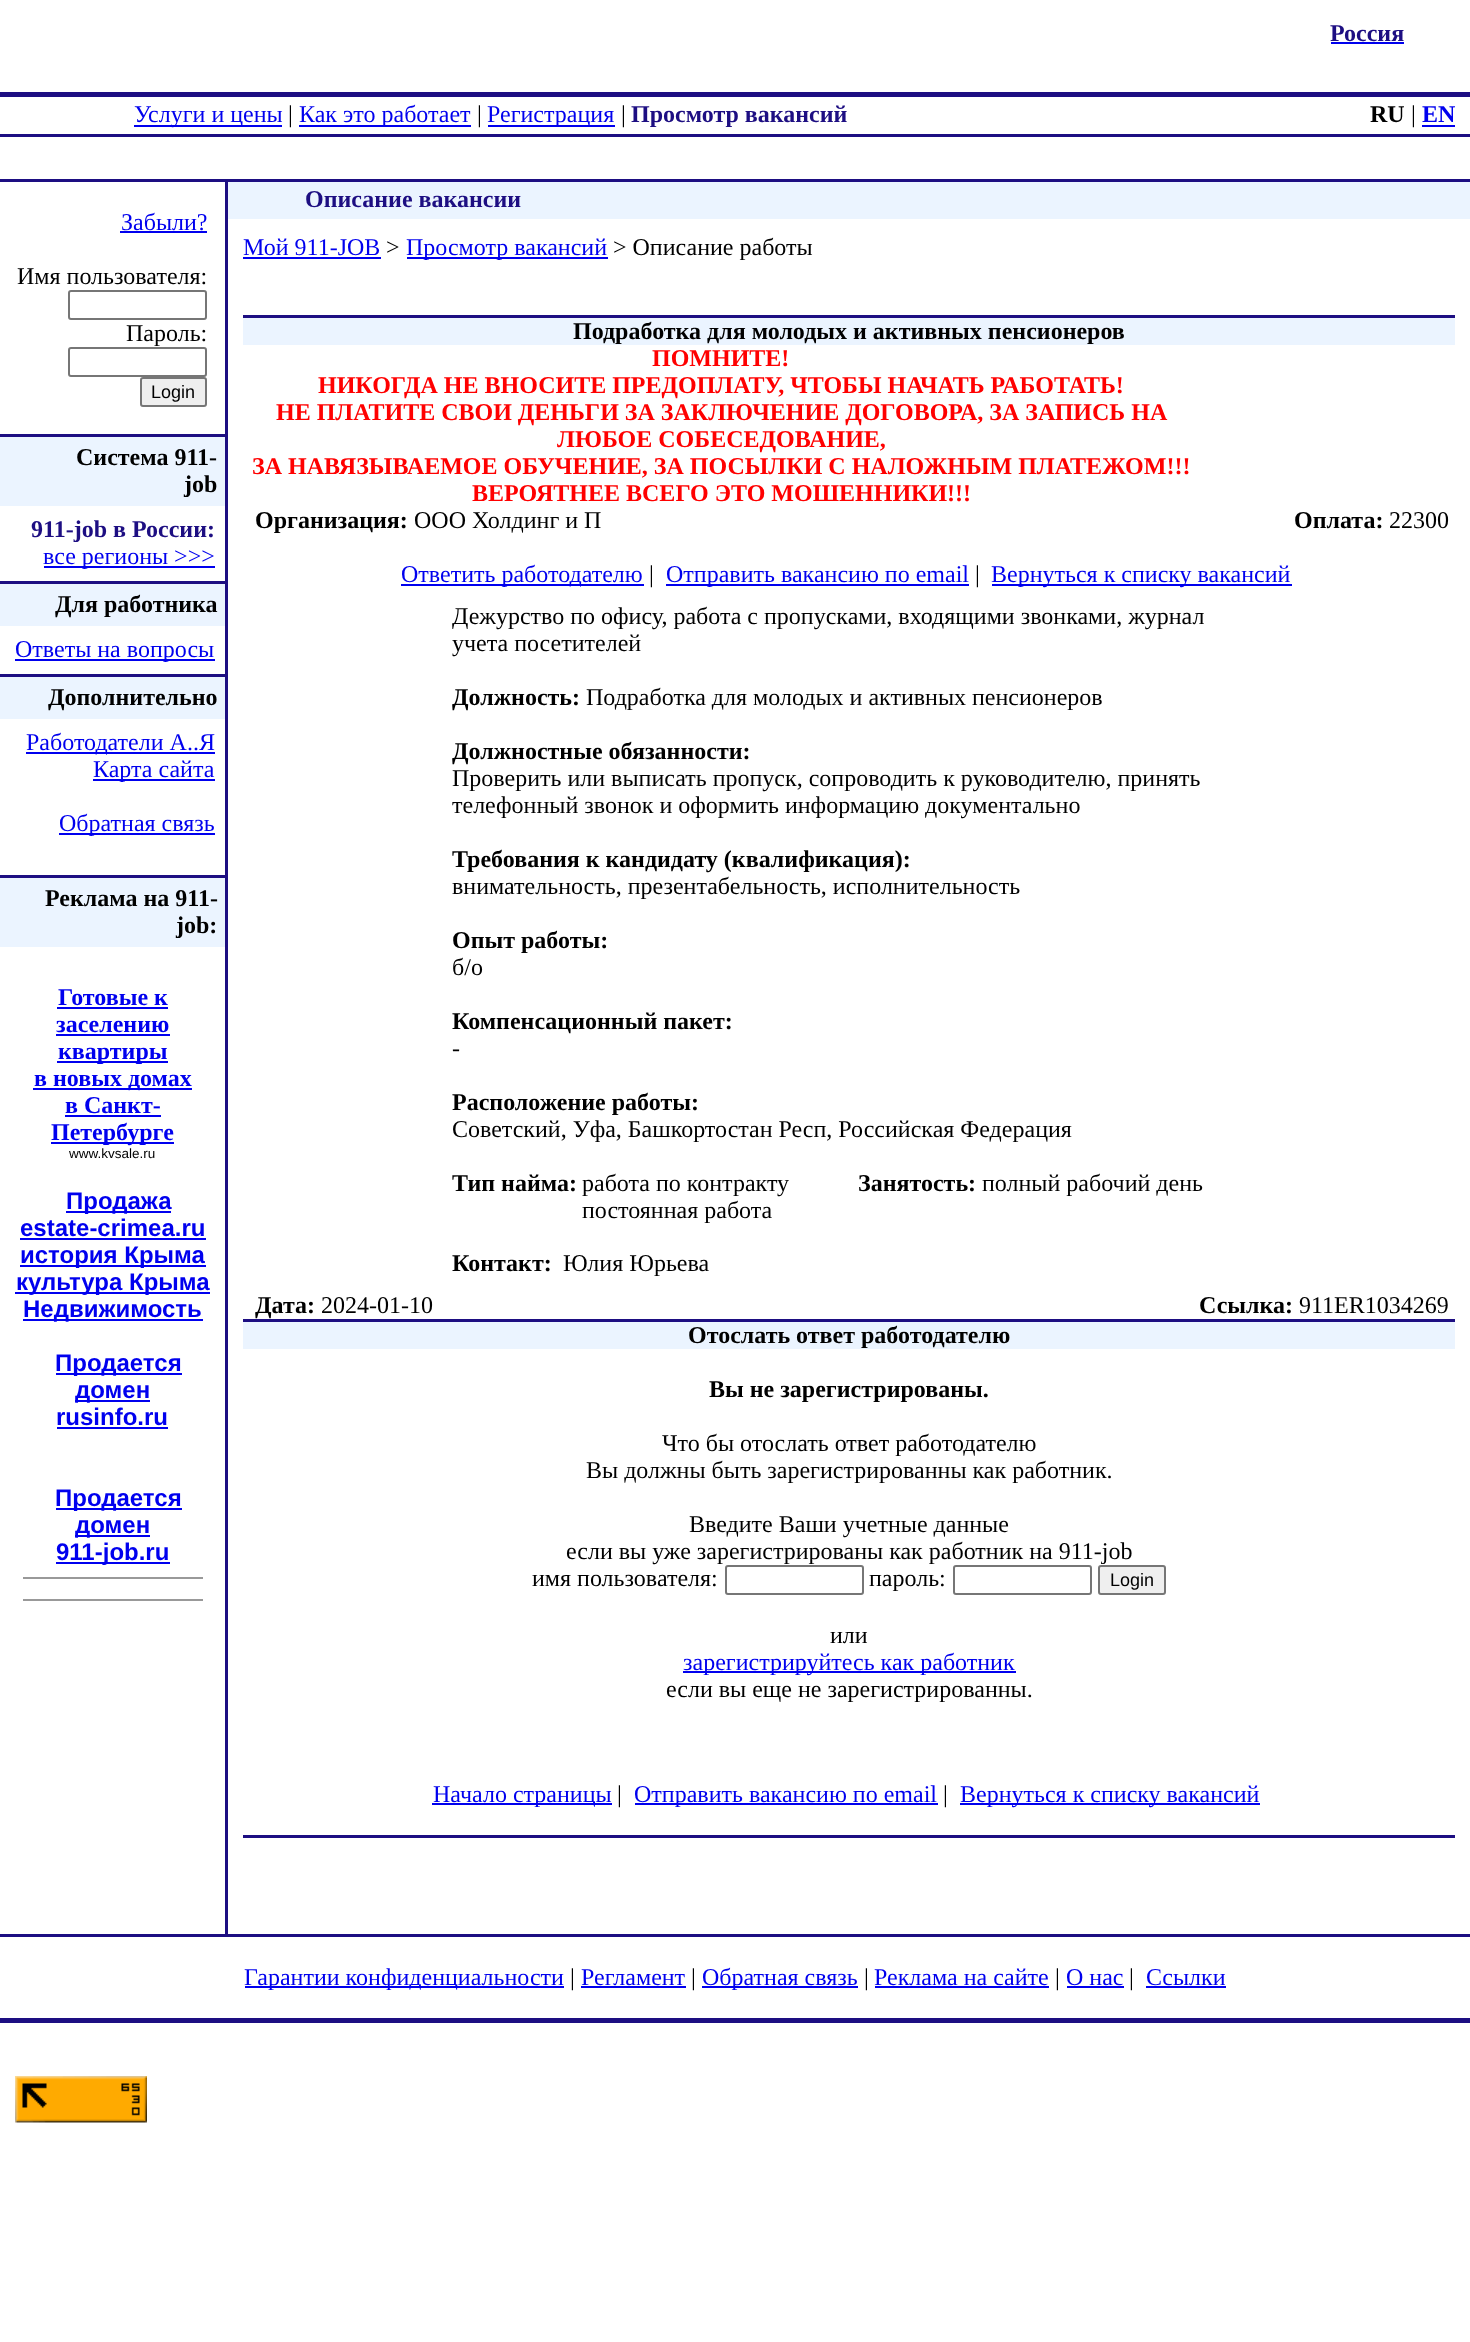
async function draw(canvas) {
  canvas.width = 1470
  canvas.height = 2342
  const ctx = canvas.getContext('2d')
  ctx.miterLimit = 4
  ctx.fontKerning = 'normal'
  async function loadImage(src) {
    const img = new Image()
    img.src = src
    await img.decode()
    return img
  }

  ctx.fillStyle = '#fff'
  ctx.fillRect(0, 0, 1470, 2342)
  ctx.font = 'bold 24px Liberation Serif'
  ctx.fillStyle = '#1d0e82'
  ctx.fillText('Россия', 1330, 41)
  ctx.fillStyle = '#00e'
  ctx.fillRect(1331, 42, 73, 2)
  ctx.fillStyle = '#1d0e82'
  ctx.fillRect(0, 92, 1470, 5)
  ctx.fillStyle = '#00e'
  ctx.fillRect(134, 125, 148, 2)
  ctx.font = '24px Liberation Serif'
  ctx.fillText('Услуги и цены', 134, 122)
  ctx.fillStyle = '#000'
  ctx.fillText('|', 288, 122)
  ctx.fillStyle = '#00e'
  ctx.fillRect(299, 125, 172, 2)
  ctx.fillText('Как это работает', 299, 122)
  ctx.fillStyle = '#000'
  ctx.fillText('|', 477, 122)
  ctx.fillStyle = '#00e'
  ctx.fillRect(488, 125, 127, 2)
  ctx.fillText('Регистрация', 487, 122)
  ctx.fillStyle = '#000'
  ctx.fillText('|', 621, 122)
  ctx.font = 'bold 24px Liberation Serif'
  ctx.fillStyle = '#1d0e82'
  ctx.fillText('Просмотр вакансий', 631, 122)
  ctx.fillStyle = '#000'
  ctx.fillText('RU', 1370, 122)
  ctx.font = '24px Liberation Serif'
  ctx.fillText('|', 1411, 122)
  ctx.font = 'bold 24px Liberation Serif'
  ctx.fillStyle = '#00e'
  ctx.fillText('EN', 1422, 122)
  ctx.fillRect(1422, 125, 33, 2)
  ctx.fillStyle = '#1d0e82'
  ctx.fillRect(0, 134, 1470, 3)
  ctx.fillRect(0, 179, 1470, 3)
  ctx.font = '24px Liberation Serif'
  ctx.fillStyle = '#00e'
  ctx.fillText('Забыли?', 121, 230)
  ctx.fillRect(120, 231, 87, 2)
  ctx.fillStyle = '#000'
  ctx.fillText('Имя пользователя:', 17, 284)
  ctx.beginPath()
  ctx.roundRect(69, 291, 137, 28, 2)
  ctx.strokeStyle = '#767676'
  ctx.lineWidth = 2
  ctx.stroke()
  ctx.fillText('Пароль:', 126, 341)
  ctx.beginPath()
  ctx.roundRect(69, 348, 137, 28, 2)
  ctx.stroke()
  ctx.fillStyle = '#efefef'
  ctx.beginPath()
  ctx.roundRect(141, 378, 65, 28, 2)
  ctx.fill()
  ctx.stroke()
  ctx.font = '18px Liberation Sans'
  ctx.fillStyle = '#000'
  ctx.fillText('Login', 151, 398)
  ctx.fillStyle = '#1d0e82'
  ctx.fillRect(0, 434, 225, 3)
  ctx.fillStyle = '#ebf4ff'
  ctx.fillRect(0, 437, 225, 69)
  ctx.font = 'bold 24px Liberation Serif'
  ctx.fillStyle = '#000'
  ctx.fillText('Система 911-', 76, 465)
  ctx.fillText('job', 184, 492)
  ctx.fillStyle = '#1d0e82'
  ctx.fillText('911-job в России:', 31, 537)
  ctx.fillStyle = '#00e'
  ctx.fillRect(44, 566, 171, 2)
  ctx.font = '24px Liberation Serif'
  ctx.fillText('все регионы >>>', 43, 564)
  ctx.fillStyle = '#1d0e82'
  ctx.fillRect(0, 581, 225, 3)
  ctx.fillStyle = '#ebf4ff'
  ctx.fillRect(0, 584, 225, 42)
  ctx.font = 'bold 24px Liberation Serif'
  ctx.fillStyle = '#000'
  ctx.fillText('Для работника', 55, 612)
  ctx.fillStyle = '#00e'
  ctx.fillRect(15, 659, 200, 2)
  ctx.font = '24px Liberation Serif'
  ctx.fillText('Ответы на вопросы', 15, 657)
  ctx.fillStyle = '#1d0e82'
  ctx.fillRect(0, 674, 225, 3)
  ctx.fillStyle = '#ebf4ff'
  ctx.fillRect(0, 677, 225, 42)
  ctx.font = 'bold 24px Liberation Serif'
  ctx.fillStyle = '#000'
  ctx.fillText('Дополнительно', 48, 705)
  ctx.fillStyle = '#00e'
  ctx.fillRect(26, 752, 189, 2)
  ctx.font = '24px Liberation Serif'
  ctx.fillText('Работодатели А..Я', 26, 750)
  ctx.fillRect(93, 779, 122, 2)
  ctx.fillText('Карта сайта', 93, 777)
  ctx.fillRect(59, 833, 156, 2)
  ctx.fillText('Обратная связь', 59, 831)
  ctx.fillStyle = '#1d0e82'
  ctx.fillRect(0, 875, 225, 3)
  ctx.fillStyle = '#ebf4ff'
  ctx.fillRect(0, 878, 225, 69)
  ctx.font = 'bold 24px Liberation Serif'
  ctx.fillStyle = '#000'
  ctx.fillText('Реклама на 911-', 45, 906)
  ctx.fillText('job:', 176, 933)
  ctx.fillStyle = '#00e'
  ctx.fillText('Готовые к', 58, 1005)
  ctx.fillRect(57, 1007, 111, 2)
  ctx.fillText('заселению', 56, 1032)
  ctx.fillRect(56, 1034, 114, 2)
  ctx.fillRect(57, 1061, 111, 2)
  ctx.fillText('квартиры', 58, 1059)
  ctx.fillRect(33, 1088, 159, 2)
  ctx.fillText('в новых домах', 34, 1086)
  ctx.fillText('в Санкт-', 65, 1113)
  ctx.fillRect(65, 1115, 96, 2)
  ctx.fillRect(51, 1142, 123, 2)
  ctx.fillText('Петербурге', 51, 1140)
  ctx.font = '13.5px Liberation Sans'
  ctx.fillStyle = '#000'
  ctx.fillText('www.kvsale.ru', 69, 1158)
  ctx.fillStyle = '#00e'
  ctx.fillRect(66, 1211, 105, 2)
  ctx.font = 'bold 24px Liberation Sans'
  ctx.fillText('Продажа', 66, 1209)
  ctx.fillText('estate-crimea.ru', 20, 1236)
  ctx.fillRect(20, 1238, 186, 2)
  ctx.fillRect(20, 1265, 186, 2)
  ctx.fillText('история Крыма', 20, 1263)
  ctx.fillRect(15, 1292, 195, 2)
  ctx.fillText('культура Крыма', 16, 1290)
  ctx.fillRect(23, 1319, 180, 2)
  ctx.fillText('Недвижимость', 23, 1317)
  ctx.fillRect(56, 1373, 126, 2)
  ctx.fillText('Продается', 55, 1371)
  ctx.fillRect(75, 1400, 75, 2)
  ctx.fillText('домен', 75, 1398)
  ctx.fillText('rusinfo.ru', 56, 1425)
  ctx.fillRect(57, 1427, 111, 2)
  ctx.fillRect(56, 1508, 126, 2)
  ctx.fillText('Продается', 55, 1506)
  ctx.fillRect(75, 1535, 75, 2)
  ctx.fillText('домен', 75, 1533)
  ctx.fillRect(56, 1562, 114, 2)
  ctx.fillText('911-job.ru', 56, 1560)
  ctx.fillStyle = '#999'
  ctx.fillRect(23, 1577, 180, 2)
  ctx.fillRect(23, 1599, 180, 2)
  ctx.fillStyle = '#1d0e82'
  ctx.fillRect(225, 182, 3, 1752)
  ctx.fillStyle = '#ebf4ff'
  ctx.fillRect(228, 182, 1242, 37)
  ctx.font = 'bold 24px Liberation Serif'
  ctx.fillStyle = '#1d0e82'
  ctx.fillText('Описание вакансии', 305, 207)
  ctx.font = '24px Liberation Serif'
  ctx.fillStyle = '#00e'
  ctx.fillText('Мой 911-JOB', 243, 255)
  ctx.fillRect(243, 257, 138, 2)
  ctx.fillStyle = '#000'
  ctx.fillText('>', 386, 255)
  ctx.fillStyle = '#00e'
  ctx.fillRect(407, 257, 201, 2)
  ctx.fillText('Просмотр вакансий', 406, 255)
  ctx.fillStyle = '#000'
  ctx.fillText('> Описание работы', 613, 255)
  ctx.fillStyle = '#1d0e82'
  ctx.fillRect(243, 315, 1212, 3)
  ctx.fillStyle = '#ebf4ff'
  ctx.fillRect(243, 318, 1212, 27)
  ctx.font = 'bold 24px Liberation Serif'
  ctx.fillStyle = '#000'
  ctx.fillText('Подработка для молодых и активных пенсионеров', 573, 339)
  ctx.fillStyle = '#f00'
  ctx.fillText('ПОМНИТЕ!', 652, 366)
  ctx.fillText('НИКОГДА НЕ ВНОСИТЕ ПРЕДОПЛАТУ, ЧТОБЫ НАЧАТЬ РАБОТАТЬ!', 318, 393)
  ctx.fillText('НЕ ПЛАТИТЕ СВОИ ДЕНЬГИ ЗА ЗАКЛЮЧЕНИЕ ДОГОВОРА, ЗА ЗАПИСЬ НА', 276, 420)
  ctx.fillText('ЛЮБОЕ СОБЕСЕДОВАНИЕ,', 557, 447)
  ctx.fillText('ЗА НАВЯЗЫВАЕМОЕ ОБУЧЕНИЕ, ЗА ПОСЫЛКИ С НАЛОЖНЫМ ПЛАТЕЖОМ!!!', 252, 474)
  ctx.fillText('ВЕРОЯТНЕЕ ВСЕГО ЭТО МОШЕННИКИ!!!', 472, 501)
  ctx.fillStyle = '#000'
  ctx.fillText('Организация:', 255, 528)
  ctx.font = '24px Liberation Serif'
  ctx.fillText('ООО Холдинг и П', 414, 528)
  ctx.font = 'bold 24px Liberation Serif'
  ctx.fillText('Оплата:', 1294, 528)
  ctx.font = '24px Liberation Serif'
  ctx.fillText('22300', 1389, 528)
  ctx.fillStyle = '#00e'
  ctx.fillRect(401, 584, 243, 2)
  ctx.fillText('Ответить работодателю', 401, 582)
  ctx.fillStyle = '#000'
  ctx.fillText('|', 649, 582)
  ctx.fillStyle = '#00e'
  ctx.fillRect(666, 584, 303, 2)
  ctx.fillText('Отправить вакансию по email', 666, 582)
  ctx.fillStyle = '#000'
  ctx.fillText('|', 975, 582)
  ctx.fillStyle = '#00e'
  ctx.fillRect(992, 584, 300, 2)
  ctx.fillText('Вернуться к списку вакансий', 991, 582)
  ctx.fillStyle = '#000'
  ctx.fillText('Дежурство по офису, работа с пропусками, входящими звонками, журнал', 452, 624)
  ctx.fillText('учета посетителей', 452, 651)
  ctx.font = 'bold 24px Liberation Serif'
  ctx.fillText('Должность:', 452, 705)
  ctx.font = '24px Liberation Serif'
  ctx.fillText('Подработка для молодых и активных пенсионеров', 586, 705)
  ctx.font = 'bold 24px Liberation Serif'
  ctx.fillText('Должностные обязанности:', 452, 759)
  ctx.font = '24px Liberation Serif'
  ctx.fillText('Проверить или выписать пропуск, сопроводить к руководителю, принять', 452, 786)
  ctx.fillText('телефонный звонок и оформить информацию документально', 452, 813)
  ctx.font = 'bold 24px Liberation Serif'
  ctx.fillText('Требования к кандидату (квалификация):', 452, 867)
  ctx.font = '24px Liberation Serif'
  ctx.fillText('внимательность, презентабельность, исполнительность', 452, 894)
  ctx.font = 'bold 24px Liberation Serif'
  ctx.fillText('Опыт работы:', 452, 948)
  ctx.font = '24px Liberation Serif'
  ctx.fillText('б/о', 452, 975)
  ctx.font = 'bold 24px Liberation Serif'
  ctx.fillText('Компенсационный пакет:', 452, 1029)
  ctx.font = '24px Liberation Serif'
  ctx.fillText('-', 452, 1056)
  ctx.font = 'bold 24px Liberation Serif'
  ctx.fillText('Расположение работы:', 452, 1110)
  ctx.font = '24px Liberation Serif'
  ctx.fillText('Советский, Уфа, Башкортостан Респ, Российская Федерация', 452, 1137)
  ctx.font = 'bold 24px Liberation Serif'
  ctx.fillText('Тип найма:', 452, 1191)
  ctx.font = '24px Liberation Serif'
  ctx.fillText('работа по контракту', 582, 1191)
  ctx.fillText('постоянная работа', 582, 1218)
  ctx.font = 'bold 24px Liberation Serif'
  ctx.fillText('Занятость:', 858, 1191)
  ctx.font = '24px Liberation Serif'
  ctx.fillText('полный рабочий день', 982, 1191)
  ctx.font = 'bold 24px Liberation Serif'
  ctx.fillText('Контакт:', 452, 1271)
  ctx.font = '24px Liberation Serif'
  ctx.fillText('Юлия Юрьева', 563, 1271)
  ctx.font = 'bold 24px Liberation Serif'
  ctx.fillText('Дата:', 255, 1313)
  ctx.font = '24px Liberation Serif'
  ctx.fillText('2024-01-10', 321, 1313)
  ctx.font = 'bold 24px Liberation Serif'
  ctx.fillText('Ссылка:', 1199, 1313)
  ctx.font = '24px Liberation Serif'
  ctx.fillText('911ER1034269', 1299, 1313)
  ctx.fillStyle = '#1d0e82'
  ctx.fillRect(243, 1319, 1212, 3)
  ctx.fillStyle = '#ebf4ff'
  ctx.fillRect(243, 1322, 1212, 27)
  ctx.font = 'bold 24px Liberation Serif'
  ctx.fillStyle = '#000'
  ctx.fillText('Отослать ответ работодателю', 688, 1343)
  ctx.fillText('Вы не зарегистрированы.', 709, 1397)
  ctx.font = '24px Liberation Serif'
  ctx.fillText('Что бы отослать ответ работодателю', 662, 1451)
  ctx.fillText('Вы должны быть зарегистрированны как работник.', 586, 1478)
  ctx.fillText('Введите Ваши учетные данные', 689, 1532)
  ctx.fillText('если вы уже зарегистрированы как работник на 911-job', 566, 1559)
  ctx.fillText('имя пользователя:', 532, 1586)
  ctx.beginPath()
  ctx.roundRect(726, 1566, 137, 28, 2)
  ctx.stroke()
  ctx.fillText('пароль:', 869, 1586)
  ctx.beginPath()
  ctx.roundRect(954, 1566, 137, 28, 2)
  ctx.stroke()
  ctx.fillStyle = '#efefef'
  ctx.beginPath()
  ctx.roundRect(1099, 1566, 66, 28, 2)
  ctx.fill()
  ctx.stroke()
  ctx.font = '18px Liberation Sans'
  ctx.fillStyle = '#000'
  ctx.fillText('Login', 1110, 1586)
  ctx.font = '24px Liberation Serif'
  ctx.fillText('или', 830, 1643)
  ctx.fillStyle = '#00e'
  ctx.fillRect(683, 1671, 333, 2)
  ctx.fillText('зарегистрируйтесь как работник', 683, 1670)
  ctx.fillStyle = '#000'
  ctx.fillText('если вы еще не зарегистрированны.', 666, 1697)
  ctx.fillStyle = '#00e'
  ctx.fillRect(432, 1803, 180, 2)
  ctx.fillText('Начало страницы', 433, 1802)
  ctx.fillStyle = '#000'
  ctx.fillText('|', 617, 1802)
  ctx.fillStyle = '#00e'
  ctx.fillRect(635, 1803, 303, 2)
  ctx.fillText('Отправить вакансию по email', 634, 1802)
  ctx.fillStyle = '#000'
  ctx.fillText('|', 943, 1802)
  ctx.fillStyle = '#00e'
  ctx.fillRect(960, 1803, 300, 2)
  ctx.fillText('Вернуться к списку вакансий', 960, 1802)
  ctx.fillStyle = '#1d0e82'
  ctx.fillRect(243, 1835, 1212, 3)
  ctx.fillRect(0, 1934, 1470, 3)
  ctx.fillStyle = '#00e'
  ctx.fillRect(245, 1986, 319, 2)
  ctx.fillText('Гарантии конфиденциальности', 244, 1985)
  ctx.fillStyle = '#000'
  ctx.fillText('|', 570, 1985)
  ctx.fillStyle = '#00e'
  ctx.fillText('Регламент', 581, 1985)
  ctx.fillRect(581, 1986, 105, 2)
  ctx.fillStyle = '#000'
  ctx.fillText('|', 691, 1985)
  ctx.fillStyle = '#00e'
  ctx.fillRect(702, 1986, 156, 2)
  ctx.fillText('Обратная связь', 702, 1985)
  ctx.fillStyle = '#000'
  ctx.fillText('|', 864, 1985)
  ctx.fillStyle = '#00e'
  ctx.fillText('Реклама на сайте', 874, 1985)
  ctx.fillRect(875, 1986, 174, 2)
  ctx.fillStyle = '#000'
  ctx.fillText('|', 1055, 1985)
  ctx.fillStyle = '#00e'
  ctx.fillText('О нас', 1066, 1985)
  ctx.fillRect(1067, 1986, 57, 2)
  ctx.fillStyle = '#000'
  ctx.fillText('|', 1129, 1985)
  ctx.fillStyle = '#00e'
  ctx.fillText('Ссылки', 1146, 1985)
  ctx.fillRect(1146, 1986, 80, 2)
  ctx.fillStyle = '#1d0e82'
  ctx.fillRect(0, 2018, 1470, 5)
  ctx.drawImage(await loadImage('image0.png'), 15, 2076, 132, 47)
}

draw(document.querySelector('canvas'))
